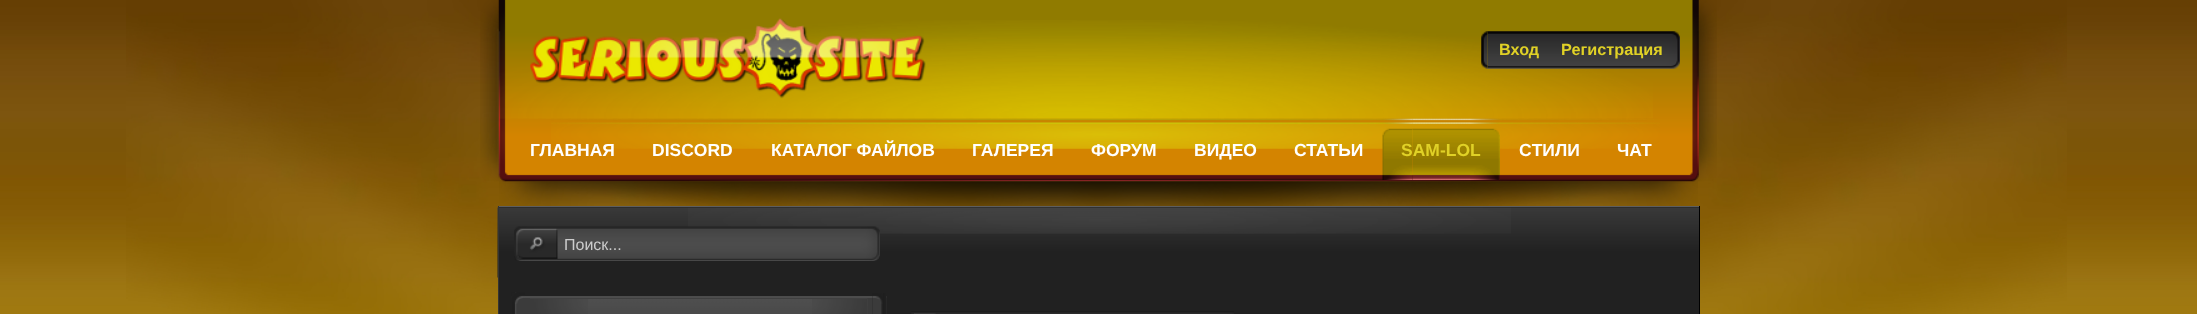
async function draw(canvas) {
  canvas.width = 2197
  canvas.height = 314
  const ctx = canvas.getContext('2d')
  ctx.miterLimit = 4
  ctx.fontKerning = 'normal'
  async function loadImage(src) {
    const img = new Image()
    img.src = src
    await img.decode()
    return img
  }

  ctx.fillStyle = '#fff'
  ctx.fillRect(0, 0, 2197, 314)
  ctx.drawImage(await loadImage('image0.png'), 0, 0, 2197, 314)
  ctx.drawImage(await loadImage('image1.png'), 126, 0, 1941, 314)
  ctx.drawImage(await loadImage('image2.png'), 480, 0, 1237, 182)
  ctx.drawImage(await loadImage('image3.png'), 499, 20, 1154, 99)
  ctx.drawImage(await loadImage('image4.png'), 530, 18, 396, 81)
  ctx.drawImage(await loadImage('image5.png'), 1487, 31, 193, 38)
  ctx.drawImage(await loadImage('image6.png'), 1481, 31, 7, 38)
  ctx.font = 'bold 16.25px Liberation Sans'
  ctx.fillStyle = '#e0d126'
  ctx.fillText('Вход', 1499, 55)
  ctx.fillText('Регистрация', 1561, 55)
  ctx.drawImage(await loadImage('image7.png'), 551, 118, 1109, 31)
  ctx.font = 'bold 17.5px Liberation Sans'
  ctx.fillStyle = '#fff'
  ctx.fillText('ГЛАВНАЯ', 530, 156)
  ctx.fillText('DISCORD', 652, 156)
  ctx.fillText('КАТАЛОГ ФАЙЛОВ', 771, 156)
  ctx.fillText('ГАЛЕРЕЯ', 972, 156)
  ctx.fillText('ФОРУМ', 1091, 156)
  ctx.fillText('ВИДЕО', 1194, 156)
  ctx.fillText('СТАТЬИ', 1294, 156)
  ctx.drawImage(await loadImage('image8.png'), 1412, 118, 58, 62)
  ctx.drawImage(await loadImage('image9.png'), 1382, 118, 31, 62)
  ctx.drawImage(await loadImage('image10.png'), 1470, 118, 30, 62)
  ctx.fillStyle = '#e0d126'
  ctx.fillText('SAM-LOL', 1401, 156)
  ctx.fillStyle = '#fff'
  ctx.fillText('CТИЛИ', 1519, 156)
  ctx.fillText('ЧАТ', 1617, 156)
  ctx.drawImage(await loadImage('image11.png'), 499, 181, 1199, 25)
  ctx.fillStyle = '#212121'
  ctx.fillRect(499, 207, 1200, 107)
  ctx.drawImage(await loadImage('image12.png'), 497, 207, 1202, 71)
  ctx.fillStyle = '#5e5e5e'
  ctx.fillRect(498, 206, 1202, 1)
  ctx.fillStyle = '#000'
  ctx.fillRect(1699, 206, 1, 108)
  ctx.fillStyle = '#333'
  ctx.fillRect(498, 206, 1, 108)
  ctx.drawImage(await loadImage('image13.png'), 688, 207, 823, 27)
  ctx.drawImage(await loadImage('image14.png'), 514, 226, 366, 35)
  ctx.font = '16px Liberation Sans'
  ctx.fillStyle = '#ccc'
  ctx.fillText('Поиск...', 564, 250)
  ctx.drawImage(await loadImage('image15.png'), 511, 296, 376, 18)
  ctx.drawImage(await loadImage('image16.png'), 511, 292, 14, 22)
  ctx.drawImage(await loadImage('image17.png'), 872, 293, 14, 21)
  ctx.drawImage(await loadImage('image18.png'), 511, 292, 14, 22)
  ctx.drawImage(await loadImage('image19.png'), 872, 293, 11, 21)
  ctx.drawImage(await loadImage('image20.png'), 530, 298, 338, 16)
  ctx.drawImage(await loadImage('image21.png'), 530, 299, 58, 15)
  ctx.drawImage(await loadImage('image22.png'), 812, 299, 56, 15)
  ctx.drawImage(await loadImage('image23.png'), 911, 311, 323, 3)
  ctx.drawImage(await loadImage('image24.png'), 914, 313, 22, 1)
}

draw(document.querySelector('canvas'))
